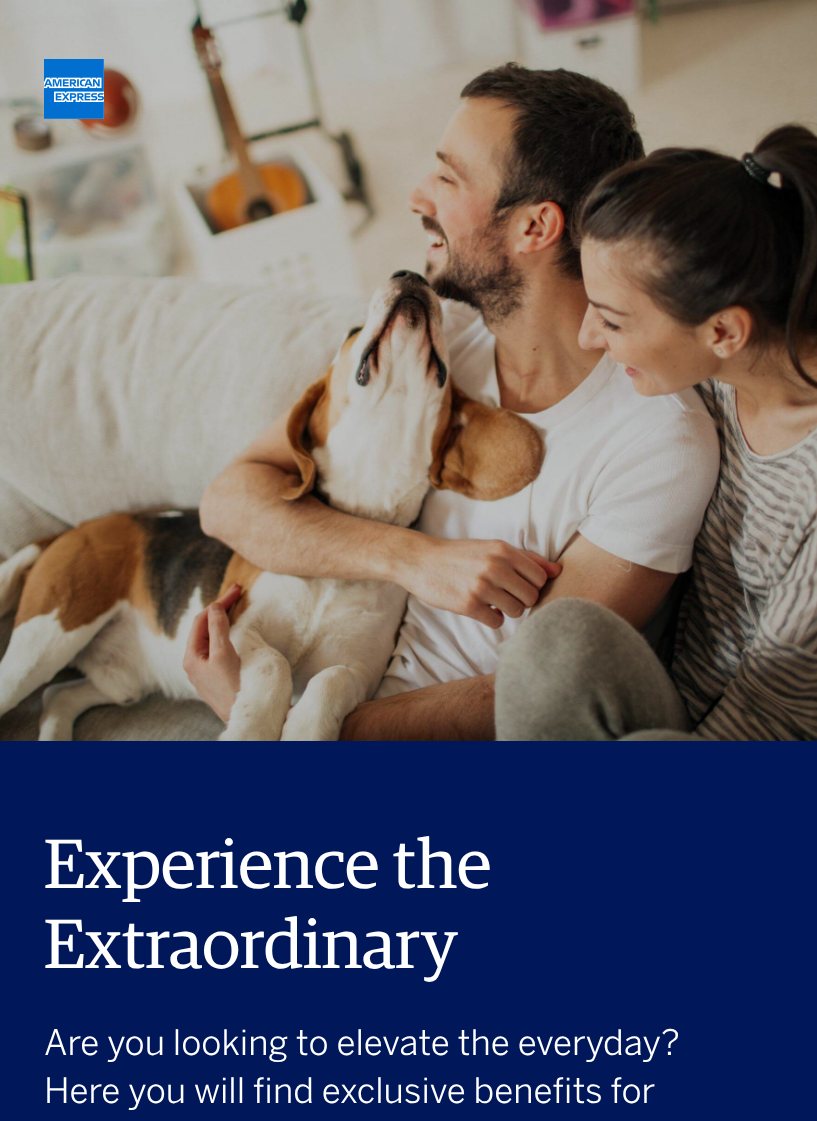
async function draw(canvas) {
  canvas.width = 817
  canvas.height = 1121
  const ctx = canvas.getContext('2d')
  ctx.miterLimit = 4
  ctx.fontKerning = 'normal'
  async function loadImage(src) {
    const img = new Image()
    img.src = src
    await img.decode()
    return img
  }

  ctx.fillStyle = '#00175a'
  ctx.fillRect(0, 0, 817, 1121)
  ctx.drawImage(await loadImage('image1.png'), 0, 0, 817, 741)
  ctx.drawImage(await loadImage('image0.png'), 44, 59, 60, 60)
  ctx.font = '69.75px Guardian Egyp'
  ctx.fillStyle = '#fff'
  ctx.fillText('Experience the', 44, 888)
  ctx.fillText('Extraordinary', 44, 968)
  ctx.font = '34.9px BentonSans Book'
  ctx.fillText('Are you looking to elevate the everyday?', 44, 1055)
  ctx.fillText('Here you will find exclusive benefits for', 44, 1103)
}

draw(document.querySelector('canvas'))
